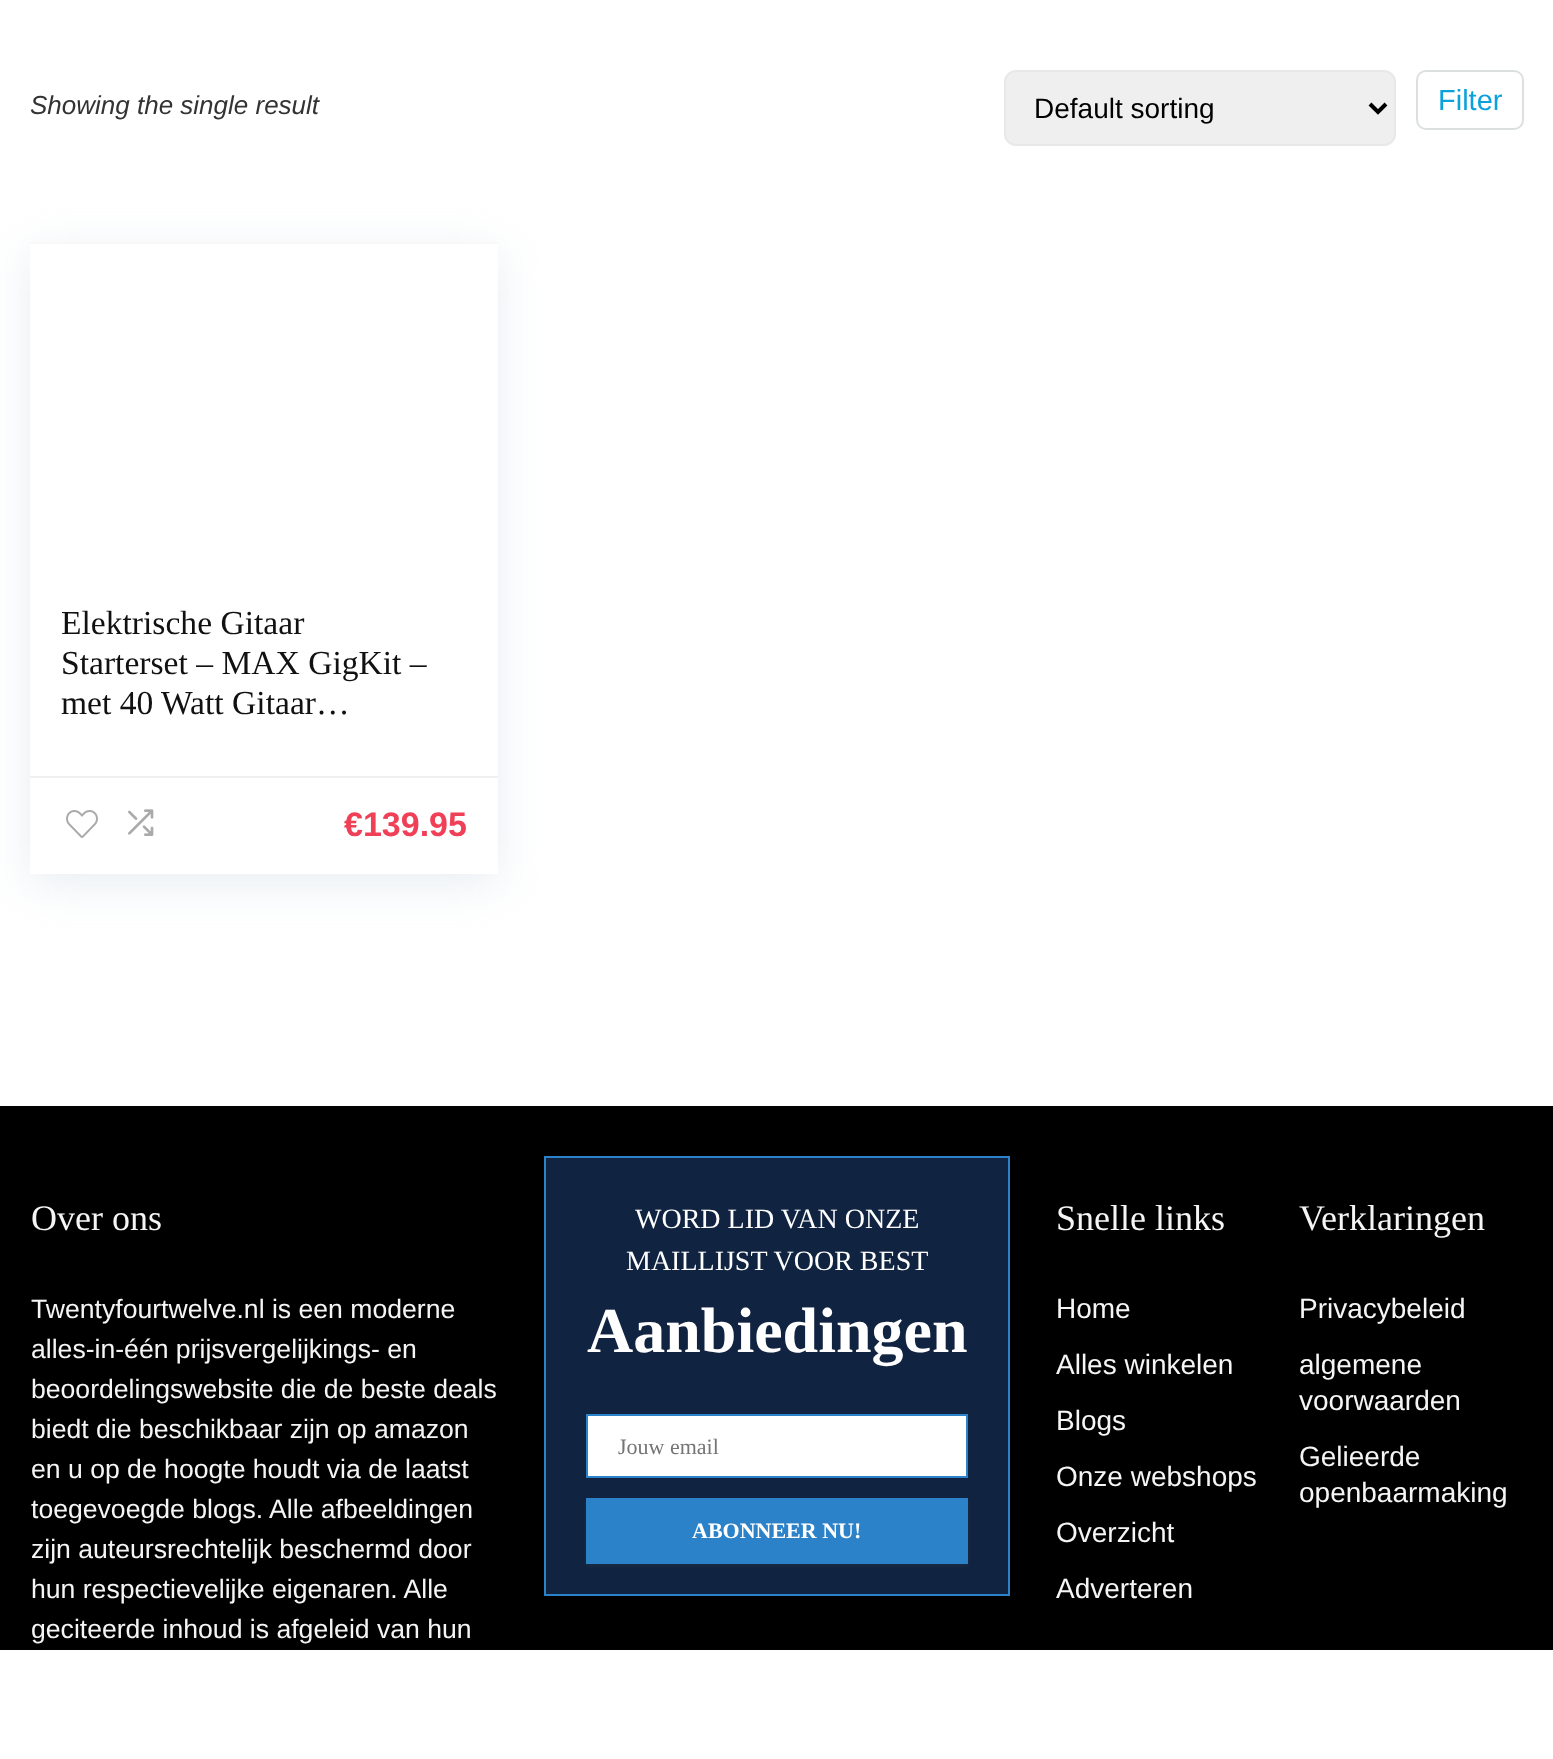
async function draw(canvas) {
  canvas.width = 1553
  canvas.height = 1759
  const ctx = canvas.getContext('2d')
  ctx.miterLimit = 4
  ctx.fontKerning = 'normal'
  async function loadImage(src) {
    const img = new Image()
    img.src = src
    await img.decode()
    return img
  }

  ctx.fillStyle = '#fff'
  ctx.fillRect(0, 0, 1553, 1759)
  ctx.font = 'italic 26px Liberation Sans'
  ctx.fillStyle = '#333'
  ctx.fillText('Showing the single result', 30, 114)
  ctx.fillStyle = '#efefef'
  ctx.beginPath()
  ctx.roundRect(1005, 71, 390, 74, 11)
  ctx.fill()
  ctx.strokeStyle = '#e8e8e8'
  ctx.lineWidth = 2
  ctx.stroke()
  ctx.beginPath()
  ctx.moveTo(1370, 104)
  ctx.lineTo(1378, 112)
  ctx.lineTo(1386, 104)
  ctx.strokeStyle = '#000'
  ctx.lineWidth = 4
  ctx.stroke()
  ctx.font = '28px Liberation Sans'
  ctx.fillStyle = '#000'
  ctx.fillText('Default sorting', 1034, 118)
  ctx.beginPath()
  ctx.roundRect(1417, 71, 106, 58, 9)
  ctx.strokeStyle = '#dce0e0'
  ctx.lineWidth = 2
  ctx.stroke()
  ctx.font = '29px Liberation Sans'
  ctx.fillStyle = '#0ba1dd'
  ctx.fillText('Filter', 1438, 110)
  ctx.save()
  ctx.beginPath()
  ctx.moveTo(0, 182)
  ctx.lineTo(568, 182)
  ctx.lineTo(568, 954)
  ctx.lineTo(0, 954)
  ctx.closePath()
  ctx.moveTo(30, 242)
  ctx.lineTo(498, 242)
  ctx.lineTo(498, 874)
  ctx.lineTo(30, 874)
  ctx.closePath()
  ctx.clip('evenodd')
  ctx.fillStyle = '#bccfdb59'
  ctx.filter = 'blur(23px)'
  ctx.beginPath()
  ctx.rect(30, 252, 468, 632)
  ctx.fill()
  ctx.filter = 'none'
  ctx.restore()
  ctx.fillStyle = '#f8f8f8'
  ctx.fillRect(30, 242, 468, 2)
  ctx.font = '33.6px Liberation Serif'
  ctx.fillStyle = '#111'
  ctx.fillText('Elektrische Gitaar', 61, 634)
  ctx.fillText('Starterset – MAX GigKit –', 61, 674)
  ctx.fillText('met 40 Watt Gitaar…', 61, 714)
  ctx.fillStyle = '#f0f0f0'
  ctx.fillRect(30, 776, 468, 2)
  ctx.drawImage(await loadImage('image0.png'), 66, 810, 32, 28)
  ctx.drawImage(await loadImage('image1.png'), 128, 809, 26, 27)
  ctx.font = 'bold 34px Liberation Sans'
  ctx.fillStyle = '#f04057'
  ctx.fillText('€139.95', 344, 836)
  ctx.fillStyle = '#000'
  ctx.fillRect(0, 1106, 1553, 544)
  ctx.font = '36px Liberation Serif'
  ctx.fillStyle = '#f5f5f5'
  ctx.fillText('Over ons', 31, 1230)
  ctx.font = '26.6px Liberation Sans'
  ctx.fillText('Twentyfourtwelve.nl is een moderne', 31, 1318)
  ctx.fillText('alles-in-één prijsvergelijkings- en', 31, 1358)
  ctx.fillText('beoordelingswebsite die de beste deals', 31, 1398)
  ctx.fillText('biedt die beschikbaar zijn op amazon', 31, 1438)
  ctx.fillText('en u op de hoogte houdt via de laatst', 31, 1478)
  ctx.fillText('toegevoegde blogs. Alle afbeeldingen', 31, 1518)
  ctx.fillText('zijn auteursrechtelijk beschermd door', 31, 1558)
  ctx.fillText('hun respectievelijke eigenaren. Alle', 31, 1598)
  ctx.fillText('geciteerde inhoud is afgeleid van hun', 31, 1638)
  ctx.fillStyle = '#102341'
  ctx.beginPath()
  ctx.rect(545, 1157, 464, 438)
  ctx.fill()
  ctx.strokeStyle = '#2c82c9'
  ctx.stroke()
  ctx.font = '28px Liberation Serif'
  ctx.fillStyle = '#fff'
  ctx.fillText('WORD LID VAN ONZE', 635, 1228)
  ctx.fillText('MAILLIJST VOOR BEST', 626, 1270)
  ctx.font = 'bold 64px Liberation Serif'
  ctx.fillText('Aanbiedingen', 587, 1352)
  ctx.beginPath()
  ctx.rect(587, 1415, 380, 62)
  ctx.fill()
  ctx.stroke()
  ctx.font = '22px Liberation Serif'
  ctx.fillStyle = '#757575'
  ctx.fillText('Jouw email', 618, 1454)
  ctx.fillStyle = '#3c40434d'
  ctx.filter = 'blur(2px)'
  ctx.beginPath()
  ctx.rect(586, 1500, 382, 66)
  ctx.fill()
  ctx.filter = 'none'
  ctx.fillStyle = '#2c82c9'
  ctx.fillRect(586, 1498, 382, 66)
  ctx.font = 'bold 22px Liberation Serif'
  ctx.fillStyle = '#fff'
  ctx.fillText('ABONNEER NU!', 692, 1538)
  ctx.font = '36px Liberation Serif'
  ctx.fillStyle = '#f5f5f5'
  ctx.fillText('Snelle links', 1056, 1230)
  ctx.font = '28px Liberation Sans'
  ctx.fillText('Home', 1056, 1318)
  ctx.fillText('Alles winkelen', 1056, 1374)
  ctx.fillText('Blogs', 1056, 1430)
  ctx.fillText('Onze webshops', 1056, 1486)
  ctx.fillText('Overzicht', 1056, 1542)
  ctx.fillText('Adverteren', 1056, 1598)
  ctx.font = '36px Liberation Serif'
  ctx.fillText('Verklaringen', 1299, 1230)
  ctx.font = '28px Liberation Sans'
  ctx.fillText('Privacybeleid', 1299, 1318)
  ctx.fillText('algemene', 1299, 1374)
  ctx.fillText('voorwaarden', 1299, 1410)
  ctx.fillText('Gelieerde', 1299, 1466)
  ctx.fillText('openbaarmaking', 1299, 1502)
  ctx.fillStyle = '#0000001f'
  ctx.filter = 'blur(9px)'
  ctx.beginPath()
  ctx.rect(0, 1650, 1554, 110)
  ctx.fill()
  ctx.filter = 'none'
  ctx.fillStyle = '#fff'
  ctx.fillRect(0, 1650, 1553, 109)
}

draw(document.querySelector('canvas'))
